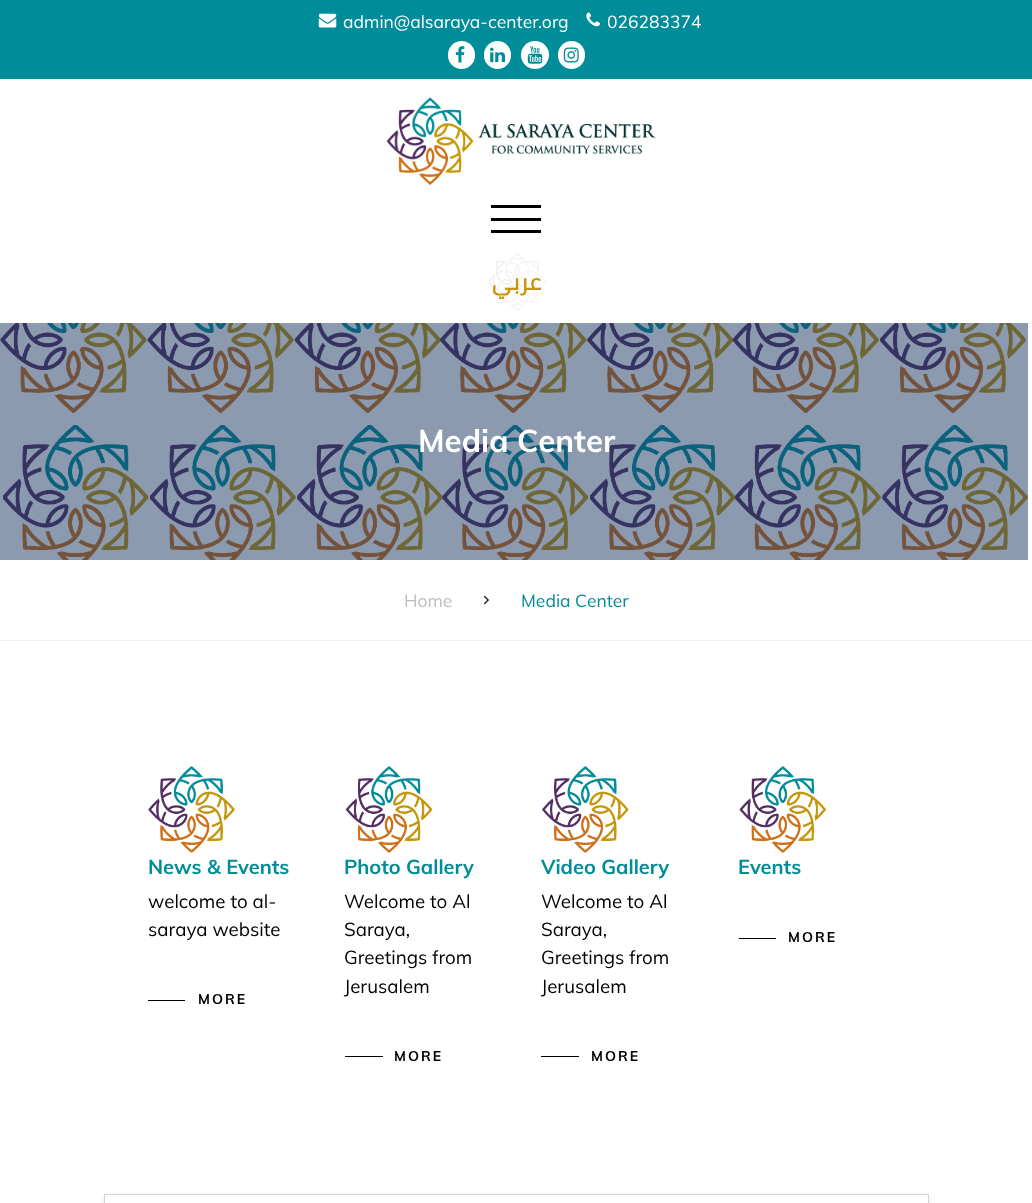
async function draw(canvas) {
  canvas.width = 1032
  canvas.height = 1203
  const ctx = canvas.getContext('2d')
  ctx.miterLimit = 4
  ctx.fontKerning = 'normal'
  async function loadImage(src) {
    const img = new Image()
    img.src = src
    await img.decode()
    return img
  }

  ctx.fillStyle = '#fff'
  ctx.fillRect(0, 0, 1032, 1203)
  ctx.fillStyle = '#008c99'
  ctx.fillRect(0, 0, 1032, 79)
  ctx.drawImage(await loadImage('image0.png'), 318, 13, 19, 15)
  ctx.font = '17.5px Muli'
  ctx.fillStyle = '#fff'
  ctx.fillText('admin@alsaraya-center.org', 343, 28)
  ctx.drawImage(await loadImage('image1.png'), 586, 12, 14, 15)
  ctx.fillText('026283374', 607, 28)
  ctx.beginPath()
  ctx.roundRect(448, 41, 27, 28, 13.5)
  ctx.fill()
  ctx.drawImage(await loadImage('image2.png'), 455, 46, 10, 17)
  ctx.beginPath()
  ctx.roundRect(484, 41, 27, 28, 13.5)
  ctx.fill()
  ctx.drawImage(await loadImage('image3.png'), 490, 47, 15, 16)
  ctx.beginPath()
  ctx.arc(535, 55, 14, 0, 2 * Math.PI)
  ctx.fill()
  ctx.drawImage(await loadImage('image4.png'), 527, 46, 16, 18)
  ctx.beginPath()
  ctx.roundRect(558, 41, 27, 28, 13.5)
  ctx.fill()
  ctx.drawImage(await loadImage('image5.png'), 563, 47, 16, 16)
  ctx.drawImage(await loadImage('image6.png'), 386, 97, 270, 88)
  ctx.fillStyle = '#000'
  ctx.fillRect(491, 205, 50, 3)
  ctx.fillRect(491, 218, 50, 3)
  ctx.fillRect(491, 230, 50, 3)
  ctx.drawImage(await loadImage('image7.png'), 487, 253, 59, 58)
  ctx.direction = 'rtl'
  ctx.font = 'bold 22.5px Cairo'
  ctx.fillStyle = '#c4960c'
  ctx.fillText('عربي', 541, 290)
  ctx.drawImage(await loadImage('image8.png'), 0, 323, 1028, 237)
  ctx.direction = 'ltr'
  ctx.font = 'bold 31.25px Muli'
  ctx.fillStyle = '#fff'
  ctx.fillText('Media Center', 418, 452)
  ctx.fillStyle = '#efefef'
  ctx.fillRect(0, 640, 1032, 1)
  ctx.font = '17.5px Muli'
  ctx.fillStyle = '#bdbdbd'
  ctx.fillText('Home', 404, 607)
  ctx.drawImage(await loadImage('image9.png'), 483, 595, 6, 10)
  ctx.fillStyle = '#008c99'
  ctx.fillText('Media Center', 521, 607)
  ctx.drawImage(await loadImage('image10.png'), 148, 766, 87, 87)
  ctx.font = 'bold 20px Muli'
  ctx.fillText('News & Events', 148, 874)
  ctx.font = '18.75px Muli'
  ctx.fillStyle = '#000'
  ctx.fillText('welcome to al-', 148, 908)
  ctx.fillText('saraya website', 148, 936)
  ctx.fillRect(148, 1000, 37, 1)
  ctx.letterSpacing = '2px'
  ctx.font = 'bold 14px Muli'
  ctx.fillText('MORE', 198, 1004)
  ctx.drawImage(await loadImage('image11.png'), 345, 766, 88, 87)
  ctx.letterSpacing = '0px'
  ctx.font = 'bold 20px Muli'
  ctx.fillStyle = '#008c99'
  ctx.fillText('Photo Gallery', 344, 874)
  ctx.font = '18.75px Muli'
  ctx.fillStyle = '#000'
  ctx.fillText('Welcome to Al', 344, 908)
  ctx.fillText('Saraya,', 344, 936)
  ctx.fillText('Greetings from', 344, 964)
  ctx.fillText('Jerusalem', 344, 993)
  ctx.fillRect(345, 1056, 38, 1)
  ctx.letterSpacing = '2px'
  ctx.font = 'bold 14px Muli'
  ctx.fillText('MORE', 394, 1061)
  ctx.drawImage(await loadImage('image12.png'), 542, 766, 87, 87)
  ctx.letterSpacing = '0px'
  ctx.font = 'bold 20px Muli'
  ctx.fillStyle = '#008c99'
  ctx.fillText('Video Gallery', 541, 874)
  ctx.font = '18.75px Muli'
  ctx.fillStyle = '#000'
  ctx.fillText('Welcome to Al', 541, 908)
  ctx.fillText('Saraya,', 541, 936)
  ctx.fillText('Greetings from', 541, 964)
  ctx.fillText('Jerusalem', 541, 993)
  ctx.fillRect(541, 1056, 38, 1)
  ctx.letterSpacing = '2px'
  ctx.font = 'bold 14px Muli'
  ctx.fillText('MORE', 591, 1061)
  ctx.drawImage(await loadImage('image13.png'), 739, 766, 88, 87)
  ctx.letterSpacing = '0px'
  ctx.font = 'bold 20px Muli'
  ctx.fillStyle = '#008c99'
  ctx.fillText('Events', 738, 874)
  ctx.fillStyle = '#000'
  ctx.fillRect(739, 938, 37, 1)
  ctx.letterSpacing = '2px'
  ctx.font = 'bold 14px Muli'
  ctx.fillText('MORE', 788, 942)
  ctx.save()
  ctx.beginPath()
  ctx.moveTo(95, 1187)
  ctx.lineTo(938, 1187)
  ctx.lineTo(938, 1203)
  ctx.lineTo(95, 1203)
  ctx.closePath()
  ctx.moveTo(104, 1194)
  ctx.lineTo(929, 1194)
  ctx.lineTo(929, 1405)
  ctx.lineTo(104, 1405)
  ctx.closePath()
  ctx.clip('evenodd')
  ctx.fillStyle = '#0000001a'
  ctx.filter = 'blur(2.5px)'
  ctx.beginPath()
  ctx.rect(104, 1196, 825, 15)
  ctx.fill()
  ctx.filter = 'none'
  ctx.restore()
  ctx.strokeStyle = '#d4d4d4'
  ctx.strokeRect(104.5, 1194.5, 824, 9)
}

draw(document.querySelector('canvas'))
